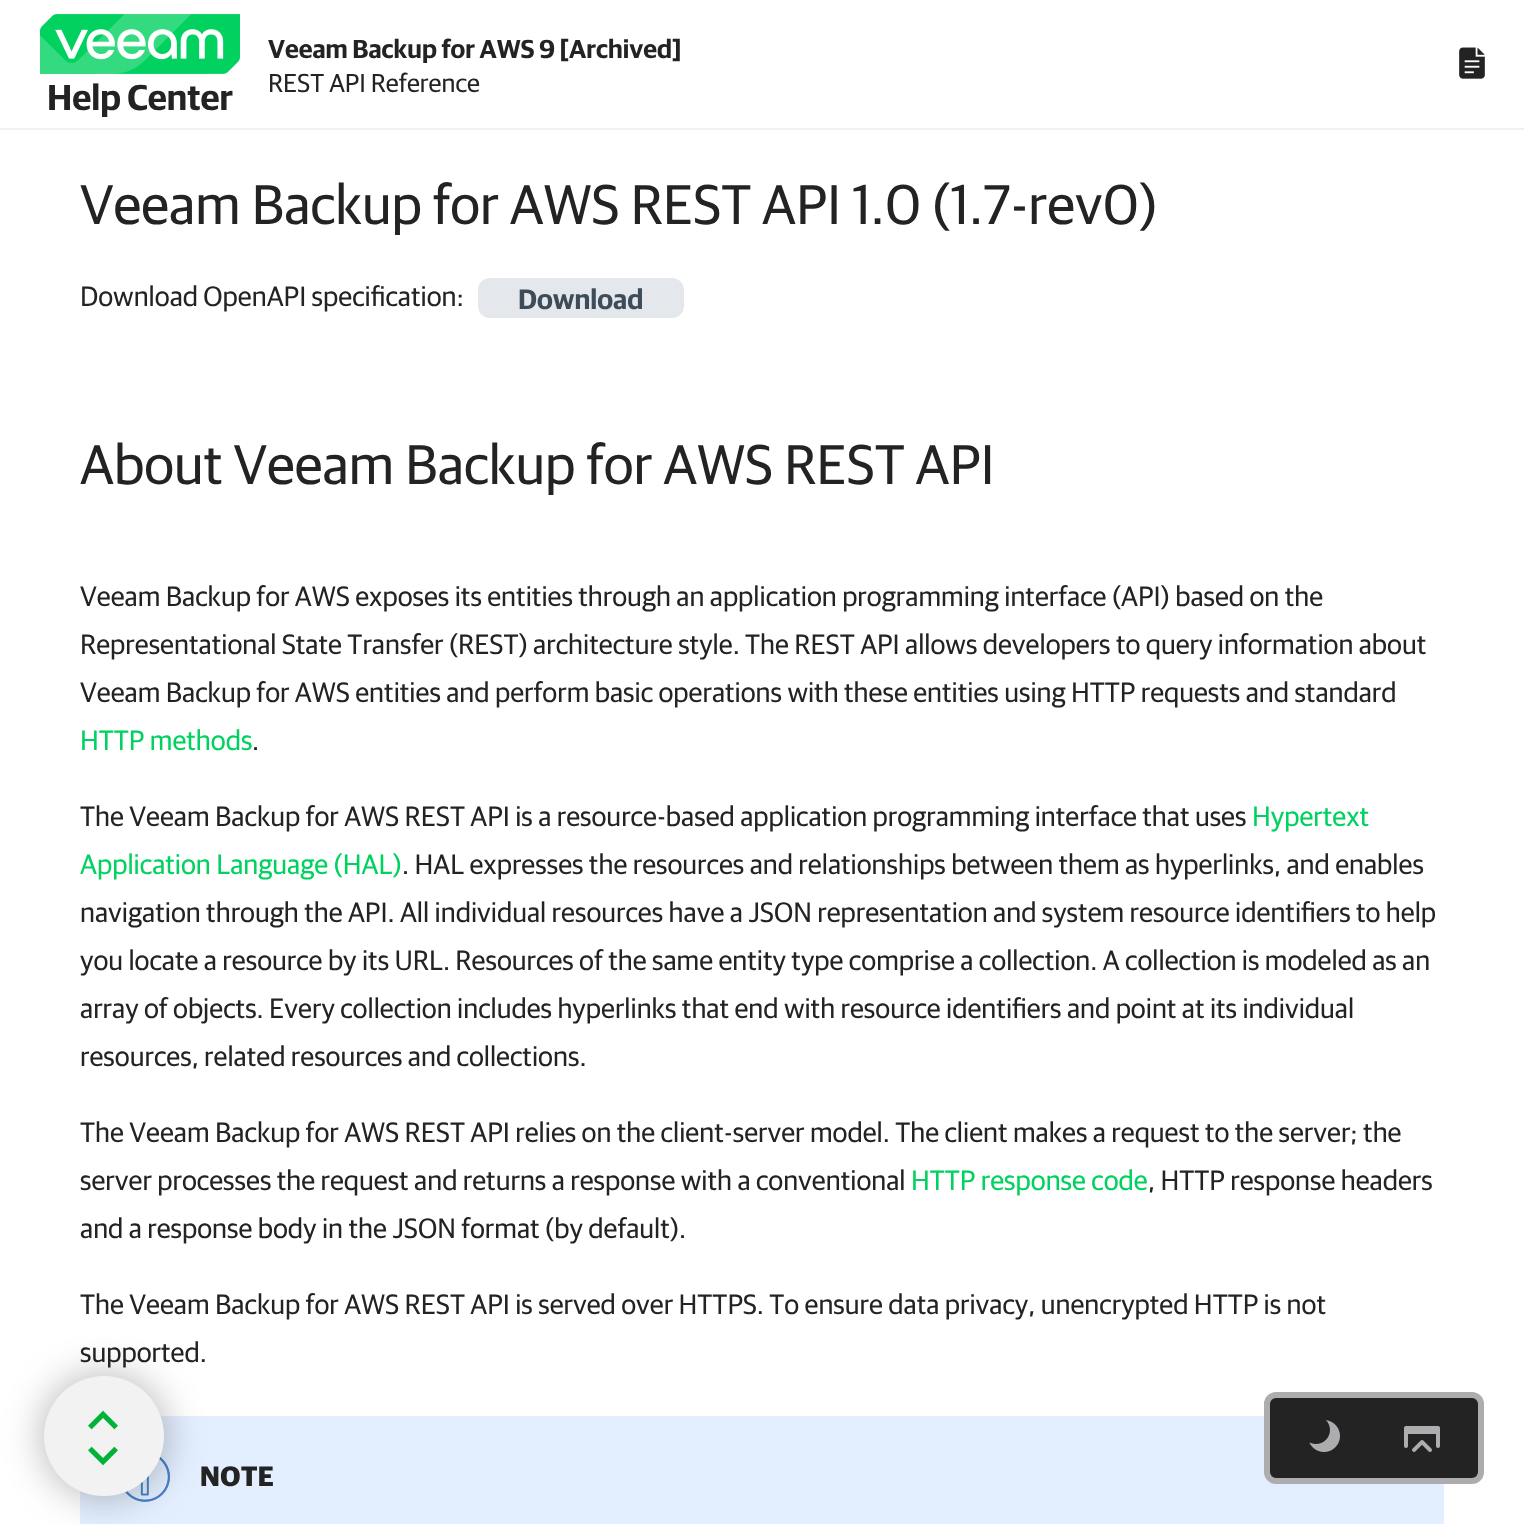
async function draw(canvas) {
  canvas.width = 1524
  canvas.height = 1524
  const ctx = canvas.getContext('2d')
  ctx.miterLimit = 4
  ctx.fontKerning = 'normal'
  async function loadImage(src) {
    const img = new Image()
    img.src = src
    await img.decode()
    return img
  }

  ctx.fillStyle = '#fff'
  ctx.fillRect(0, 0, 1524, 1524)
  ctx.fillStyle = '#f0f0f0'
  ctx.fillRect(0, 128, 1524, 2)
  ctx.font = '600 26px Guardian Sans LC'
  ctx.fillStyle = '#232323'
  ctx.fillText('Veeam Backup for AWS 9 [Archived]', 268, 58)
  ctx.font = '26px Guardian Sans LC'
  ctx.fillText('REST API Reference', 268, 92)
  ctx.drawImage(await loadImage('image0.png'), 40, 14, 200, 60)
  ctx.font = '600 36px Guardian Sans LC'
  ctx.fillText('Help Center', 47, 110)
  ctx.drawImage(await loadImage('image1.png'), 1459, 47, 26, 32)
  ctx.font = '56px Guardian Sans LC'
  ctx.fillText('Veeam Backup for AWS REST API 1.0 (1.7-rev0)', 80, 224)
  ctx.font = '28px Guardian Sans LC'
  ctx.fillText('Download OpenAPI specification:', 80, 306)
  ctx.fillStyle = '#e4e7eb'
  ctx.beginPath()
  ctx.roundRect(478, 278, 206, 40, 12)
  ctx.fill()
  ctx.font = '600 28px Guardian Sans LC'
  ctx.fillStyle = '#3e4c59'
  ctx.fillText('Download', 518, 309)
  ctx.font = '56px Guardian Sans LC'
  ctx.fillStyle = '#232323'
  ctx.fillText('About Veeam Backup for AWS REST API', 80, 484)
  ctx.font = '28px Guardian Sans LC'
  ctx.fillText('Veeam Backup for AWS exposes its entities through an application programming interface (API) based on the', 80, 606)
  ctx.fillText('Representational State Transfer (REST) architecture style. The REST API allows developers to query information about', 80, 654)
  ctx.fillText('Veeam Backup for AWS entities and perform basic operations with these entities using HTTP requests and standard', 80, 702)
  ctx.fillStyle = '#00d15f'
  ctx.fillText('HTTP methods', 80, 750)
  ctx.fillStyle = '#232323'
  ctx.fillText('.', 252, 750)
  ctx.fillText('The Veeam Backup for AWS REST API is a resource-based application programming interface that uses', 80, 826)
  ctx.fillStyle = '#00d15f'
  ctx.fillText('Hypertext', 1252, 826)
  ctx.fillText('Application Language (HAL)', 80, 874)
  ctx.fillStyle = '#232323'
  ctx.fillText('. HAL expresses the resources and relationships between them as hyperlinks, and enables', 402, 874)
  ctx.fillText('navigation through the API. All individual resources have a JSON representation and system resource identifiers to help', 80, 922)
  ctx.fillText('you locate a resource by its URL. Resources of the same entity type comprise a collection. A collection is modeled as an', 80, 970)
  ctx.fillText('array of objects. Every collection includes hyperlinks that end with resource identifiers and point at its individual', 80, 1018)
  ctx.fillText('resources, related resources and collections.', 80, 1066)
  ctx.fillText('The Veeam Backup for AWS REST API relies on the client-server model. The client makes a request to the server; the', 80, 1142)
  ctx.fillText('server processes the request and returns a response with a conventional', 80, 1190)
  ctx.fillStyle = '#00d15f'
  ctx.fillText('HTTP response code', 911, 1190)
  ctx.fillStyle = '#232323'
  ctx.fillText(', HTTP response headers', 1148, 1190)
  ctx.fillText('and a response body in the JSON format (by default).', 80, 1238)
  ctx.fillText('The Veeam Backup for AWS REST API is served over HTTPS. To ensure data privacy, unencrypted HTTP is not', 80, 1314)
  ctx.fillText('supported.', 80, 1362)
  ctx.fillStyle = '#e3eefe'
  ctx.fillRect(80, 1416, 1364, 108)
  ctx.drawImage(await loadImage('image2.png'), 125, 1457, 45, 45)
  ctx.letterSpacing = '0.5px'
  ctx.font = 'bold 28px Guardian Sans LC'
  ctx.fillStyle = '#232323'
  ctx.fillText('NOTE', 200, 1486)
  ctx.fillStyle = '#0000004d'
  ctx.filter = 'blur(20px)'
  ctx.beginPath()
  ctx.roundRect(44, 1376, 120, 120, 60)
  ctx.fill()
  ctx.filter = 'none'
  ctx.fillStyle = '#f2f2f2'
  ctx.beginPath()
  ctx.arc(104, 1436, 60, 0, 2 * Math.PI)
  ctx.fill()
  ctx.drawImage(await loadImage('image3.png'), 88, 1410, 30, 20)
  ctx.drawImage(await loadImage('image4.png'), 88, 1446, 30, 20)
  ctx.fillStyle = '#232323'
  ctx.beginPath()
  ctx.roundRect(1267, 1395, 214, 86, 9)
  ctx.fill()
  ctx.strokeStyle = '#adacaf'
  ctx.lineWidth = 6
  ctx.stroke()
  ctx.drawImage(await loadImage('image5.png'), 1309, 1420, 31, 32)
  ctx.drawImage(await loadImage('image6.png'), 1404, 1426, 36, 26)
}

draw(document.querySelector('canvas'))
